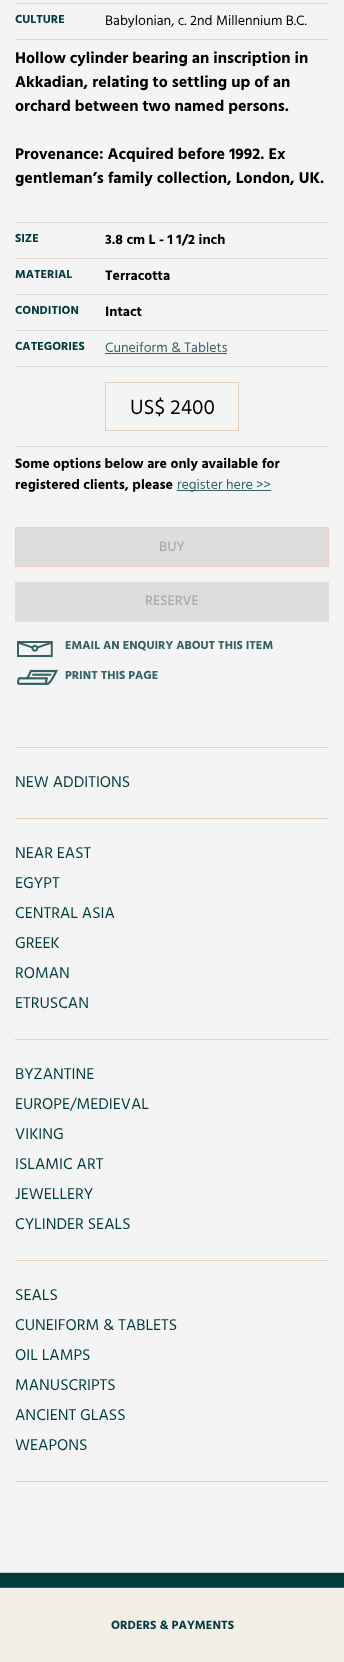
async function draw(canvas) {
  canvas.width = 344
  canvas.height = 1662
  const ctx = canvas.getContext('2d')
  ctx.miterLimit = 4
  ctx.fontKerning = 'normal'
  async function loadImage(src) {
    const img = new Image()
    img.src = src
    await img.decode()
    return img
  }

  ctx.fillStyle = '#013c3d'
  ctx.fillRect(0, 0, 344, 1662)
  ctx.fillStyle = '#f5f4f4'
  ctx.fillRect(0, 0, 344, 1572)
  ctx.fillStyle = '#e4d6cb'
  ctx.fillRect(15, 3, 314, 1)
  ctx.font = 'bold 12px Hind'
  ctx.fillStyle = '#013c3d'
  ctx.fillText('CULTURE', 15, 23)
  ctx.font = '14px Hind'
  ctx.fillStyle = '#000'
  ctx.fillText('Babylonian, c. 2nd Millennium B.C.', 105, 25)
  ctx.fillStyle = '#e4d6cb'
  ctx.fillRect(15, 39, 314, 1)
  ctx.font = 'bold 16px Hind'
  ctx.fillStyle = '#000'
  ctx.fillText('Hollow cylinder bearing an inscription in', 15, 63)
  ctx.fillText('Akkadian, relating to settling up of an', 15, 87)
  ctx.fillText('orchard between two named persons.', 15, 111)
  ctx.fillText('Provenance: Acquired before 1992. Ex', 15, 159)
  ctx.fillText('gentleman’s family collection, London, UK.', 15, 183)
  ctx.fillStyle = '#e4d6cb'
  ctx.fillRect(15, 222, 314, 1)
  ctx.font = 'bold 12px Hind'
  ctx.fillStyle = '#013c3d'
  ctx.fillText('SIZE', 15, 242)
  ctx.font = 'bold 14px Hind'
  ctx.fillStyle = '#000'
  ctx.fillText('3.8 cm L - 1 1/2 inch', 105, 244)
  ctx.fillStyle = '#e4d6cb'
  ctx.fillRect(15, 258, 314, 1)
  ctx.font = 'bold 12px Hind'
  ctx.fillStyle = '#013c3d'
  ctx.fillText('MATERIAL', 15, 278)
  ctx.font = 'bold 14px Hind'
  ctx.fillStyle = '#000'
  ctx.fillText('Terracotta', 105, 280)
  ctx.fillStyle = '#e4d6cb'
  ctx.fillRect(15, 294, 314, 1)
  ctx.font = 'bold 12px Hind'
  ctx.fillStyle = '#013c3d'
  ctx.fillText('CONDITION', 15, 314)
  ctx.font = 'bold 14px Hind'
  ctx.fillStyle = '#000'
  ctx.fillText('Intact', 105, 316)
  ctx.fillStyle = '#e4d6cb'
  ctx.fillRect(15, 330, 314, 1)
  ctx.font = 'bold 12px Hind'
  ctx.fillStyle = '#013c3d'
  ctx.fillText('CATEGORIES', 15, 350)
  ctx.font = '14px Hind'
  ctx.fillStyle = '#346364'
  ctx.fillText('Cuneiform & Tablets', 105, 352)
  ctx.fillRect(105, 353, 122, 1)
  ctx.fillStyle = '#e4d6cb'
  ctx.fillRect(15, 366, 314, 1)
  ctx.strokeStyle = '#e1cfc0'
  ctx.strokeRect(105.5, 382.5, 133, 48)
  ctx.font = '21px Hind'
  ctx.fillStyle = '#000'
  ctx.fillText('US$ 2400', 130, 414)
  ctx.fillStyle = '#e4d6cb'
  ctx.fillRect(15, 446, 314, 1)
  ctx.font = 'bold 14px Hind'
  ctx.fillStyle = '#000'
  ctx.fillText('Some options below are only available for', 15, 468)
  ctx.fillText('registered clients, please', 15, 489)
  ctx.fillStyle = '#346364'
  ctx.fillRect(177, 490, 94, 1)
  ctx.font = '14px Hind'
  ctx.fillText('register here >>', 177, 489)
  ctx.fillStyle = '#ddd'
  ctx.beginPath()
  ctx.rect(15.5, 527.5, 313, 39)
  ctx.fill()
  ctx.strokeStyle = '#f4cbc2'
  ctx.stroke()
  ctx.font = '500 14px Hind'
  ctx.fillStyle = '#ababab'
  ctx.fillText('BUY', 159, 551)
  ctx.fillStyle = '#ddd'
  ctx.fillRect(15, 582, 314, 40)
  ctx.fillStyle = '#ababab'
  ctx.fillText('RESERVE', 145, 605)
  ctx.drawImage(await loadImage('image0.png'), 17, 641, 36, 16)
  ctx.font = 'bold 12px Hind'
  ctx.fillStyle = '#346364'
  ctx.fillText('EMAIL AN ENQUIRY ABOUT THIS ITEM', 65, 649)
  ctx.drawImage(await loadImage('image1.png'), 17, 669, 41, 16)
  ctx.fillText('PRINT THIS PAGE', 65, 679)
  ctx.fillStyle = '#e1cfc0'
  ctx.fillRect(15, 747, 314, 1)
  ctx.fillRect(15, 818, 314, 1)
  ctx.font = '16px Hind'
  ctx.fillStyle = '#013c3d'
  ctx.fillText('NEW ADDITIONS', 15, 787)
  ctx.fillStyle = '#e1cfc0'
  ctx.fillRect(15, 1039, 314, 1)
  ctx.fillStyle = '#013c3d'
  ctx.fillText('NEAR EAST', 15, 858)
  ctx.fillText('EGYPT', 15, 888)
  ctx.fillText('CENTRAL ASIA', 15, 918)
  ctx.fillText('GREEK', 15, 948)
  ctx.fillText('ROMAN', 15, 978)
  ctx.fillText('ETRUSCAN', 15, 1008)
  ctx.fillStyle = '#e1cfc0'
  ctx.fillRect(15, 1260, 314, 1)
  ctx.fillStyle = '#013c3d'
  ctx.fillText('BYZANTINE', 15, 1079)
  ctx.fillText('EUROPE/MEDIEVAL', 15, 1109)
  ctx.fillText('VIKING', 15, 1139)
  ctx.fillText('ISLAMIC ART', 15, 1169)
  ctx.fillText('JEWELLERY', 15, 1199)
  ctx.fillText('CYLINDER SEALS', 15, 1229)
  ctx.fillStyle = '#e1cfc0'
  ctx.fillRect(15, 1481, 314, 1)
  ctx.fillStyle = '#013c3d'
  ctx.fillText('SEALS', 15, 1300)
  ctx.fillText('CUNEIFORM & TABLETS', 15, 1330)
  ctx.fillText('OIL LAMPS', 15, 1360)
  ctx.fillText('MANUSCRIPTS', 15, 1390)
  ctx.fillText('ANCIENT GLASS', 15, 1420)
  ctx.fillText('WEAPONS', 15, 1450)
  ctx.fillStyle = '#c4cfcf'
  ctx.fillRect(0, 1572, 344, 1)
  ctx.fillStyle = '#f4eee8'
  ctx.fillRect(0, 1588, 344, 74)
  ctx.fillStyle = '#32605f'
  ctx.fillRect(0, 1587, 344, 1)
  ctx.font = 'bold 12.25px Hind'
  ctx.fillStyle = '#013c3d'
  ctx.fillText('ORDERS & PAYMENTS', 111, 1629)
}

draw(document.querySelector('canvas'))
